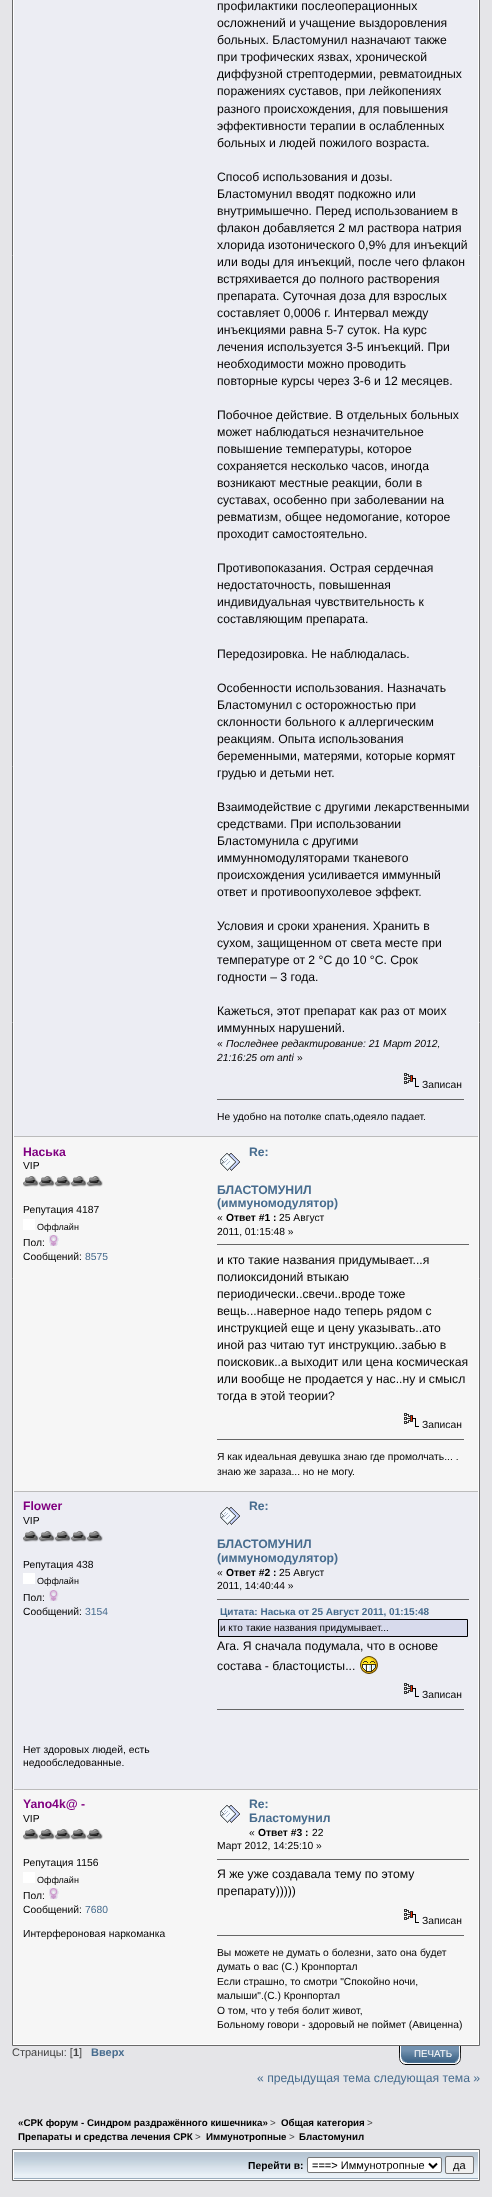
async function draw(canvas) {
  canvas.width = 492
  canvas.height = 2197
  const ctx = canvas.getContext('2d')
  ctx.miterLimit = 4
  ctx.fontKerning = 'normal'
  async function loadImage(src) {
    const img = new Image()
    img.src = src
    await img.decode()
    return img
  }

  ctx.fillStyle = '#e5e5e8'
  ctx.fillRect(0, 0, 492, 2197)
  ctx.fillStyle = '#fff'
  ctx.beginPath()
  ctx.rect(12.5, -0.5, 467, 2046)
  ctx.fill()
  ctx.strokeStyle = '#696969'
  ctx.stroke()
  ctx.fillStyle = '#ecedf3'
  ctx.fillRect(14, 0, 464, 1136)
  ctx.font = '12.2px Liberation Sans'
  ctx.fillStyle = '#000'
  ctx.fillText('профилактики послеоперационных', 217, 10)
  ctx.fillText('осложнений и учащение выздоровления', 217, 27)
  ctx.fillText('больных. Бластомунил назначают также', 217, 44)
  ctx.fillText('при трофических язвах, хронической', 217, 61)
  ctx.fillText('диффузной стрептодермии, ревматоидных', 217, 78)
  ctx.fillText('поражениях суставов, при лейкопениях', 217, 95)
  ctx.fillText('разного происхождения, для повышения', 217, 113)
  ctx.fillText('эффективности терапии в ослабленных', 217, 130)
  ctx.fillText('больных и людей пожилого возраста.', 217, 147)
  ctx.fillText('Способ использования и дозы.', 217, 181)
  ctx.fillText('Бластомунил вводят подкожно или', 217, 198)
  ctx.fillText('внутримышечно. Перед использованием в', 217, 215)
  ctx.fillText('флакон добавляется 2 мл раствора натрия', 217, 232)
  ctx.fillText('хлорида изотонического 0,9% для инъекций', 217, 249)
  ctx.fillText('или воды для инъекций, после чего флакон', 217, 266)
  ctx.fillText('встряхивается до полного растворения', 217, 283)
  ctx.fillText('препарата. Суточная доза для взрослых', 217, 300)
  ctx.fillText('составляет 0,0006 г. Интервал между', 217, 317)
  ctx.fillText('инъекциями равна 5-7 суток. На курс', 217, 334)
  ctx.fillText('лечения используется 3-5 инъекций. При', 217, 351)
  ctx.fillText('необходимости можно проводить', 217, 368)
  ctx.fillText('повторные курсы через 3-6 и 12 месяцев.', 217, 385)
  ctx.fillText('Побочное действие. В отдельных больных', 217, 419)
  ctx.fillText('может наблюдаться незначительное', 217, 436)
  ctx.fillText('повышение температуры, которое', 217, 453)
  ctx.fillText('сохраняется несколько часов, иногда', 217, 470)
  ctx.fillText('возникают местные реакции, боли в', 217, 487)
  ctx.fillText('суставах, особенно при заболевании на', 217, 504)
  ctx.fillText('ревматизм, общее недомогание, которое', 217, 521)
  ctx.fillText('проходит самостоятельно.', 217, 538)
  ctx.fillText('Противопоказания. Острая сердечная', 217, 572)
  ctx.fillText('недостаточность, повышенная', 217, 589)
  ctx.fillText('индивидуальная чувствительность к', 217, 606)
  ctx.fillText('составляющим препарата.', 217, 623)
  ctx.fillText('Передозировка. Не наблюдалась.', 217, 658)
  ctx.fillText('Особенности использования. Назначать', 217, 692)
  ctx.fillText('Бластомунил с осторожностью при', 217, 709)
  ctx.fillText('склонности больного к аллергическим', 217, 726)
  ctx.fillText('реакциям. Опыта использования', 217, 743)
  ctx.fillText('беременными, матерями, которые кормят', 217, 760)
  ctx.fillText('грудью и детьми нет.', 217, 777)
  ctx.fillText('Взаимодействие с другими лекарственными', 217, 811)
  ctx.fillText('средствами. При использовании', 217, 828)
  ctx.fillText('Бластомунила с другими', 217, 845)
  ctx.fillText('иммунномодуляторами тканевого', 217, 862)
  ctx.fillText('происхождения усиливается иммунный', 217, 879)
  ctx.fillText('ответ и противоопухолевое эффект.', 217, 896)
  ctx.fillText('Условия и сроки хранения. Хранить в', 217, 930)
  ctx.fillText('сухом, защищенном от света месте при', 217, 947)
  ctx.fillText('температуре от 2 °С до 10 °С. Срок', 217, 964)
  ctx.fillText('годности – 3 года.', 217, 981)
  ctx.fillText('Кажеться, этот препарат как раз от моих', 217, 1015)
  ctx.fillText('иммунных нарушений.', 217, 1032)
  ctx.font = '10.3px Liberation Sans'
  ctx.fillText('«', 217, 1047)
  ctx.font = 'italic 10.3px Liberation Sans'
  ctx.fillText('Последнее редактирование: 21 Март 2012,', 226, 1047)
  ctx.fillText('21:16:25 от anti', 217, 1061)
  ctx.font = '10.3px Liberation Sans'
  ctx.fillText('»', 297, 1061)
  ctx.drawImage(await loadImage('image0.png'), 404, 1073, 15, 14)
  ctx.fillText('Записан', 422, 1088)
  ctx.fillStyle = '#666'
  ctx.fillRect(217, 1099, 247, 1)
  ctx.fillStyle = '#000'
  ctx.fillText('Не удобно на потолке спать,одеяло падает.', 217, 1120)
  ctx.fillStyle = '#f6f6f6'
  ctx.fillRect(14, 1137, 464, 354)
  ctx.fillStyle = '#bbb'
  ctx.fillRect(14, 1136, 464, 1)
  ctx.font = 'bold 12.2px Liberation Sans'
  ctx.fillStyle = '#800080'
  ctx.fillText('Наська', 23, 1156)
  ctx.font = '10.3px Liberation Sans'
  ctx.fillStyle = '#000'
  ctx.fillText('VIP', 23, 1169)
  ctx.drawImage(await loadImage('image1.png'), 23, 1176, 16, 11)
  ctx.drawImage(await loadImage('image1.png'), 39, 1176, 16, 11)
  ctx.drawImage(await loadImage('image1.png'), 55, 1176, 16, 11)
  ctx.drawImage(await loadImage('image1.png'), 71, 1176, 16, 11)
  ctx.drawImage(await loadImage('image1.png'), 87, 1176, 16, 11)
  ctx.fillText('Репутация 4187', 23, 1213)
  ctx.fillStyle = '#fff'
  ctx.fillRect(23, 1219, 12, 11)
  ctx.font = '9px Liberation Sans'
  ctx.fillStyle = '#000'
  ctx.fillText('Оффлайн', 37, 1230)
  ctx.font = '10.3px Liberation Sans'
  ctx.fillText('Пол:', 23, 1246)
  ctx.drawImage(await loadImage('image2.png'), 49, 1235, 10, 11)
  ctx.fillText('Сообщений:', 23, 1260)
  ctx.fillStyle = '#476c8e'
  ctx.fillText('8575', 85, 1260)
  ctx.font = 'bold 12.2px Liberation Sans'
  ctx.fillText('Re:', 249, 1156)
  ctx.fillText('БЛАСТОМУНИЛ', 217, 1194)
  ctx.fillText('(иммуномодулятор)', 217, 1207)
  ctx.drawImage(await loadImage('image3.png'), 220, 1153, 20, 18)
  ctx.font = '10.3px Liberation Sans'
  ctx.fillStyle = '#000'
  ctx.fillText('«', 217, 1221)
  ctx.font = 'bold 10.3px Liberation Sans'
  ctx.fillText('Ответ #1 :', 226, 1221)
  ctx.font = '10.3px Liberation Sans'
  ctx.fillText('25 Август', 279, 1221)
  ctx.fillText('2011, 01:15:48 »', 217, 1235)
  ctx.fillStyle = '#666'
  ctx.fillRect(217, 1244, 252, 1)
  ctx.font = '12.2px Liberation Sans'
  ctx.fillStyle = '#000'
  ctx.fillText('и кто такие названия придумывает...я', 217, 1264)
  ctx.fillText('полиоксидоний втыкаю', 217, 1281)
  ctx.fillText('периодически..свечи..вроде тоже', 217, 1298)
  ctx.fillText('вещь...наверное надо теперь рядом с', 217, 1315)
  ctx.fillText('инструкцией еще и цену указывать..ато', 217, 1332)
  ctx.fillText('иной раз читаю тут инструкцию..забью в', 217, 1349)
  ctx.fillText('поисковик..а выходит или цена космическая', 217, 1366)
  ctx.fillText('или вообще не продается у нас..ну и смысл', 217, 1383)
  ctx.fillText('тогда в этой теории?', 217, 1400)
  ctx.drawImage(await loadImage('image4.png'), 404, 1413, 15, 14)
  ctx.font = '10.3px Liberation Sans'
  ctx.fillText('Записан', 422, 1428)
  ctx.fillStyle = '#666'
  ctx.fillRect(217, 1439, 247, 1)
  ctx.fillStyle = '#000'
  ctx.fillText('Я как идеальная девушка знаю где промолчать... .', 217, 1460)
  ctx.fillText('знаю же зараза... но не могу.', 217, 1475)
  ctx.fillStyle = '#ecedf3'
  ctx.fillRect(14, 1492, 464, 297)
  ctx.fillStyle = '#bbb'
  ctx.fillRect(14, 1491, 464, 1)
  ctx.font = 'bold 12.2px Liberation Sans'
  ctx.fillStyle = '#800080'
  ctx.fillText('Flower', 23, 1510)
  ctx.font = '10.3px Liberation Sans'
  ctx.fillStyle = '#000'
  ctx.fillText('VIP', 23, 1524)
  ctx.drawImage(await loadImage('image5.png'), 23, 1531, 16, 11)
  ctx.drawImage(await loadImage('image5.png'), 39, 1531, 16, 11)
  ctx.drawImage(await loadImage('image5.png'), 55, 1531, 16, 11)
  ctx.drawImage(await loadImage('image5.png'), 71, 1531, 16, 11)
  ctx.drawImage(await loadImage('image5.png'), 87, 1531, 16, 11)
  ctx.fillText('Репутация 438', 23, 1568)
  ctx.fillStyle = '#fff'
  ctx.fillRect(23, 1573, 12, 11)
  ctx.font = '9px Liberation Sans'
  ctx.fillStyle = '#000'
  ctx.fillText('Оффлайн', 37, 1584)
  ctx.font = '10.3px Liberation Sans'
  ctx.fillText('Пол:', 23, 1601)
  ctx.drawImage(await loadImage('image6.png'), 49, 1590, 10, 11)
  ctx.fillText('Сообщений:', 23, 1615)
  ctx.fillStyle = '#476c8e'
  ctx.fillText('3154', 85, 1615)
  ctx.fillStyle = '#000'
  ctx.fillText('Нет здоровых людей, есть', 23, 1753)
  ctx.fillText('недообследованные.', 23, 1766)
  ctx.font = 'bold 12.2px Liberation Sans'
  ctx.fillStyle = '#476c8e'
  ctx.fillText('Re:', 249, 1510)
  ctx.fillText('БЛАСТОМУНИЛ', 217, 1548)
  ctx.fillText('(иммуномодулятор)', 217, 1562)
  ctx.drawImage(await loadImage('image7.png'), 220, 1507, 20, 18)
  ctx.font = '10.3px Liberation Sans'
  ctx.fillStyle = '#000'
  ctx.fillText('«', 217, 1576)
  ctx.font = 'bold 10.3px Liberation Sans'
  ctx.fillText('Ответ #2 :', 226, 1576)
  ctx.font = '10.3px Liberation Sans'
  ctx.fillText('25 Август', 279, 1576)
  ctx.fillText('2011, 14:40:44 »', 217, 1589)
  ctx.fillStyle = '#666'
  ctx.fillRect(217, 1599, 252, 1)
  ctx.font = 'bold 10px Liberation Sans'
  ctx.fillStyle = '#476c8e'
  ctx.fillText('Цитата: Наська от 25 Август 2011, 01:15:48', 220, 1615)
  ctx.fillStyle = '#d7daec'
  ctx.beginPath()
  ctx.rect(218.5, 1619.5, 249, 17)
  ctx.fill()
  ctx.strokeStyle = '#000'
  ctx.stroke()
  ctx.font = '10px Liberation Sans'
  ctx.fillStyle = '#000'
  ctx.fillText('и кто такие названия придумывает...', 220, 1631)
  ctx.font = '12.2px Liberation Sans'
  ctx.fillText('Ага. Я сначала подумала, что в основе', 217, 1650)
  ctx.fillText('состава - бластоцисты...', 217, 1670)
  ctx.drawImage(await loadImage('image8.png'), 360, 1656, 18, 18)
  ctx.drawImage(await loadImage('image0.png'), 404, 1683, 15, 14)
  ctx.font = '10.3px Liberation Sans'
  ctx.fillText('Записан', 422, 1698)
  ctx.fillStyle = '#666'
  ctx.fillRect(217, 1709, 247, 1)
  ctx.fillStyle = '#f6f6f6'
  ctx.fillRect(14, 1790, 464, 254)
  ctx.fillStyle = '#bbb'
  ctx.fillRect(14, 1789, 464, 1)
  ctx.font = 'bold 12.2px Liberation Sans'
  ctx.fillStyle = '#800080'
  ctx.fillText('Yano4k@ -', 23, 1808)
  ctx.font = '10.3px Liberation Sans'
  ctx.fillStyle = '#000'
  ctx.fillText('VIP', 23, 1822)
  ctx.drawImage(await loadImage('image1.png'), 23, 1829, 16, 11)
  ctx.drawImage(await loadImage('image1.png'), 39, 1829, 16, 11)
  ctx.drawImage(await loadImage('image1.png'), 55, 1829, 16, 11)
  ctx.drawImage(await loadImage('image1.png'), 71, 1829, 16, 11)
  ctx.drawImage(await loadImage('image1.png'), 87, 1829, 16, 11)
  ctx.fillText('Репутация 1156', 23, 1866)
  ctx.fillStyle = '#fff'
  ctx.fillRect(23, 1872, 12, 11)
  ctx.font = '9px Liberation Sans'
  ctx.fillStyle = '#000'
  ctx.fillText('Оффлайн', 37, 1883)
  ctx.font = '10.3px Liberation Sans'
  ctx.fillText('Пол:', 23, 1899)
  ctx.drawImage(await loadImage('image2.png'), 49, 1888, 10, 11)
  ctx.fillText('Сообщений:', 23, 1913)
  ctx.fillStyle = '#476c8e'
  ctx.fillText('7680', 85, 1913)
  ctx.fillStyle = '#000'
  ctx.fillText('Интерфероновая наркоманка', 23, 1937)
  ctx.drawImage(await loadImage('image3.png'), 220, 1805, 20, 18)
  ctx.font = 'bold 12.2px Liberation Sans'
  ctx.fillStyle = '#476c8e'
  ctx.fillText('Re:', 249, 1808)
  ctx.fillText('Бластомунил', 249, 1822)
  ctx.font = '10.3px Liberation Sans'
  ctx.fillStyle = '#000'
  ctx.fillText('«', 249, 1836)
  ctx.font = 'bold 10.3px Liberation Sans'
  ctx.fillText('Ответ #3 :', 258, 1836)
  ctx.font = '10.3px Liberation Sans'
  ctx.fillText('22', 312, 1836)
  ctx.fillText('Март 2012, 14:25:10 »', 217, 1849)
  ctx.fillStyle = '#666'
  ctx.fillRect(217, 1859, 252, 1)
  ctx.font = '12.2px Liberation Sans'
  ctx.fillStyle = '#000'
  ctx.fillText('Я же уже создавала тему по этому', 217, 1878)
  ctx.fillText('препарату)))))', 217, 1895)
  ctx.drawImage(await loadImage('image4.png'), 404, 1909, 15, 14)
  ctx.font = '10.3px Liberation Sans'
  ctx.fillText('Записан', 422, 1924)
  ctx.fillStyle = '#666'
  ctx.fillRect(217, 1935, 247, 1)
  ctx.fillStyle = '#000'
  ctx.fillText('Вы можете не думать о болезни, зато она будет', 217, 1956)
  ctx.fillText('думать о вас (С.) Кронпортал', 217, 1970)
  ctx.fillText('Если страшно, то смотри "Спокойно ночи,', 217, 1985)
  ctx.fillText('малыши".(С.) Кронпортал', 217, 1999)
  ctx.fillText('О том, что у тебя болит живот,', 217, 2014)
  ctx.fillText('Больному говори - здоровый не поймет (Авиценна)', 217, 2028)
  ctx.font = '11px Liberation Sans'
  ctx.fillStyle = '#444'
  ctx.fillText('Страницы: [', 12, 2056)
  ctx.font = 'bold 11px Liberation Sans'
  ctx.fillText('1', 73, 2056)
  ctx.font = '11px Liberation Sans'
  ctx.fillText(']', 79, 2056)
  ctx.font = 'bold 11px Liberation Sans'
  ctx.fillStyle = '#476c8e'
  ctx.fillText('Вверх', 91, 2056)
  ctx.drawImage(await loadImage('image9.png'), 399, 2046, 40, 19)
  ctx.drawImage(await loadImage('image10.png'), 439, 2046, 22, 19)
  ctx.font = '9.75px Liberation Sans'
  ctx.fillStyle = '#fff'
  ctx.fillText('ПЕЧАТЬ', 414, 2057)
  ctx.font = '12.2px Liberation Sans'
  ctx.fillStyle = '#476c8e'
  ctx.fillText('« предыдущая тема следующая тема »', 257, 2082)
  ctx.font = 'bold 9.75px Liberation Sans'
  ctx.fillStyle = '#000'
  ctx.fillText('«СРК форум - Синдром раздражённого кишечника»', 18, 2126)
  ctx.font = '9.75px Liberation Sans'
  ctx.fillStyle = '#444'
  ctx.fillText('>', 270, 2126)
  ctx.font = 'bold 9.75px Liberation Sans'
  ctx.fillStyle = '#000'
  ctx.fillText('Общая категория', 281, 2126)
  ctx.font = '9.75px Liberation Sans'
  ctx.fillStyle = '#444'
  ctx.fillText('>', 367, 2126)
  ctx.font = 'bold 9.75px Liberation Sans'
  ctx.fillStyle = '#000'
  ctx.fillText('Препараты и средства лечения СРК', 18, 2140)
  ctx.font = '9.75px Liberation Sans'
  ctx.fillStyle = '#444'
  ctx.fillText('>', 195, 2140)
  ctx.font = 'bold 9.75px Liberation Sans'
  ctx.fillStyle = '#000'
  ctx.fillText('Иммунотропные', 206, 2140)
  ctx.font = '9.75px Liberation Sans'
  ctx.fillStyle = '#444'
  ctx.fillText('>', 289, 2140)
  ctx.font = 'bold 9.75px Liberation Sans'
  ctx.fillStyle = '#000'
  ctx.fillText('Бластомунил', 299, 2140)
  ctx.fillStyle = '#fff'
  ctx.beginPath()
  ctx.rect(12.5, 2149.5, 467, 31)
  ctx.fill()
  ctx.strokeStyle = '#696969'
  ctx.stroke()
  ctx.fillStyle = '#e9f0f6'
  ctx.fillRect(14, 2174, 464, 4)
  ctx.drawImage(await loadImage('image11.png'), 14, 2152, 464, 22)
  ctx.fillStyle = '#9baebf'
  ctx.fillRect(14, 2178, 464, 1)
  ctx.font = 'bold 10.3px Liberation Sans'
  ctx.fillStyle = '#000'
  ctx.fillText('Перейти в:', 248, 2169)
  ctx.fillStyle = '#fff'
  ctx.beginPath()
  ctx.roundRect(307.5, 2157.5, 134, 15, 1.5)
  ctx.fill()
  ctx.strokeStyle = '#767676'
  ctx.stroke()
  ctx.beginPath()
  ctx.moveTo(429, 2163.5)
  ctx.lineTo(433, 2167.5)
  ctx.lineTo(437, 2163.5)
  ctx.strokeStyle = '#000'
  ctx.lineWidth = 2
  ctx.stroke()
  ctx.font = '11px Liberation Sans'
  ctx.fillStyle = '#000'
  ctx.fillText('===> Иммунотропные', 312, 2169)
  ctx.fillStyle = '#efefef'
  ctx.beginPath()
  ctx.roundRect(445.5, 2156.5, 28, 17, 1.5)
  ctx.fill()
  ctx.strokeStyle = '#767676'
  ctx.lineWidth = 1
  ctx.stroke()
  ctx.fillStyle = '#000'
  ctx.fillText('да', 453, 2169)
}

draw(document.querySelector('canvas'))
